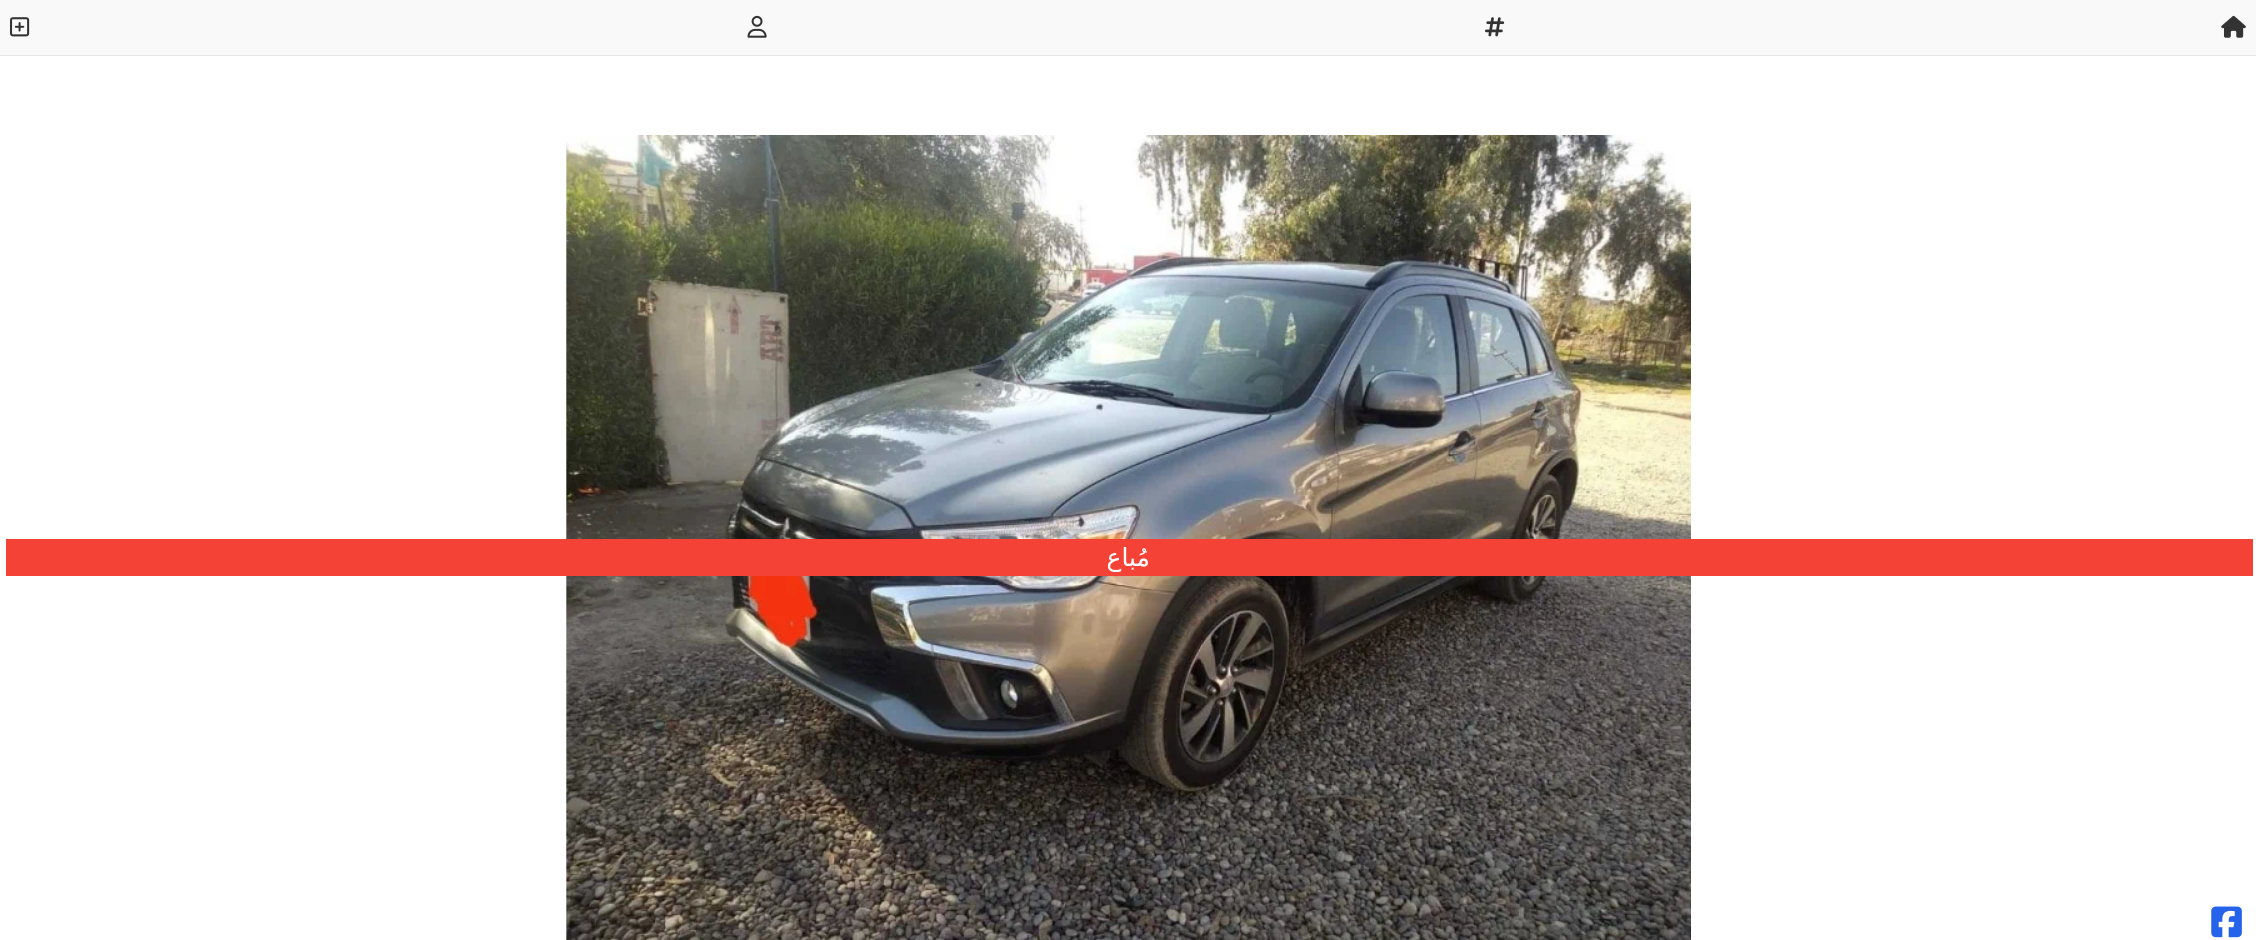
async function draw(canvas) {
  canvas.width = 2256
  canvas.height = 940
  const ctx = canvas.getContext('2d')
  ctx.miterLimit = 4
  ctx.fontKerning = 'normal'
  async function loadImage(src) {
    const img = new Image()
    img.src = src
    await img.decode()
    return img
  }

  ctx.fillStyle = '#fff'
  ctx.fillRect(0, 0, 2256, 940)
  ctx.fillStyle = '#f9f9f9'
  ctx.fillRect(0, 0, 2256, 55)
  ctx.fillStyle = '#e6e6e6'
  ctx.fillRect(0, 55, 2256, 1)
  ctx.drawImage(await loadImage('image0.png'), 2221, 15, 25, 23)
  ctx.drawImage(await loadImage('image1.png'), 1485, 17, 20, 20)
  ctx.drawImage(await loadImage('image2.png'), 747, 15, 20, 23)
  ctx.drawImage(await loadImage('image3.png'), 10, 17, 20, 20)
  ctx.drawImage(await loadImage('image4.png'), 566, 135, 1125, 805)
  ctx.fillStyle = '#f44336'
  ctx.fillRect(6, 539, 2247, 37)
  ctx.direction = 'rtl'
  ctx.font = '25px DejaVu Sans'
  ctx.fillStyle = '#fff'
  ctx.fillText('مُباع', 1150, 566)
  ctx.drawImage(await loadImage('image5.png'), 2211, 906, 31, 32)
}

draw(document.querySelector('canvas'))
